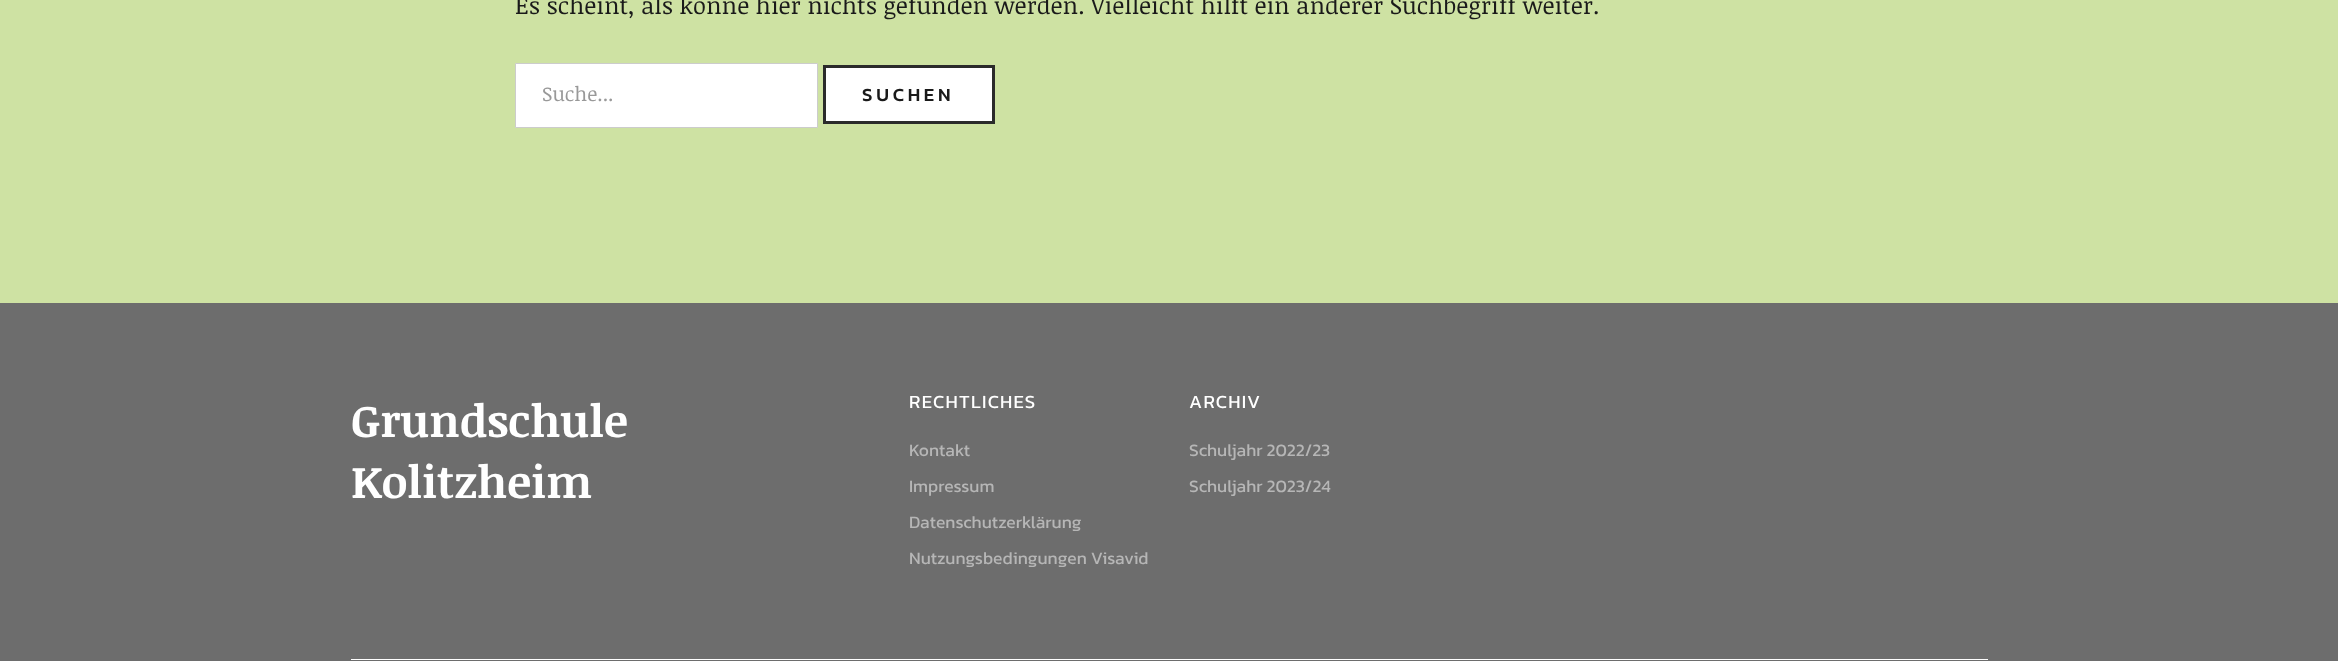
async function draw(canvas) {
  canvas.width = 2338
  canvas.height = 661
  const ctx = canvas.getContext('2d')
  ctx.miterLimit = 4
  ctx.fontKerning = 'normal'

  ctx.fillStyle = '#cee2a3'
  ctx.fillRect(0, 0, 2338, 661)
  ctx.font = '23.75px Noticia Text'
  ctx.fillStyle = '#1a1a1a'
  ctx.fillText('Es scheint, als könne hier nichts gefunden werden. Vielleicht hilft ein anderer Suchbegriff weiter.', 515, 14)
  ctx.fillStyle = '#fff'
  ctx.beginPath()
  ctx.rect(515.5, 63.5, 302, 64)
  ctx.fill()
  ctx.strokeStyle = '#ccc'
  ctx.stroke()
  ctx.font = '20px Noticia Text'
  ctx.fillStyle = '#999'
  ctx.fillText('Suche...', 542, 101)
  ctx.fillStyle = '#fff'
  ctx.beginPath()
  ctx.rect(824.5, 66.5, 169, 56)
  ctx.fill()
  ctx.strokeStyle = '#2b2b2b'
  ctx.lineWidth = 3
  ctx.stroke()
  ctx.letterSpacing = '3.75px'
  ctx.font = '500 18.75px Kanit'
  ctx.fillStyle = '#1a1a1a'
  ctx.fillText('SUCHEN', 862, 101)
  ctx.fillStyle = '#6d6d6d'
  ctx.fillRect(0, 303, 2338, 358)
  ctx.fillStyle = '#fff'
  ctx.fillRect(351, 659, 1637, 1)
  ctx.letterSpacing = '0px'
  ctx.font = 'bold 45px Noticia Text'
  ctx.fillText('Grundschule', 351, 437)
  ctx.fillText('Kolitzheim', 351, 498)
  ctx.letterSpacing = '1.25px'
  ctx.font = '18.75px Kanit'
  ctx.fillText('RECHTLICHES', 909, 408)
  ctx.letterSpacing = '0px'
  ctx.font = '17.5px Kanit'
  ctx.fillStyle = '#b6b6b6'
  ctx.fillText('Kontakt', 909, 456)
  ctx.fillText('Impressum', 909, 492)
  ctx.fillText('Datenschutzerklärung', 909, 528)
  ctx.fillText('Nutzungsbedingungen Visavid', 909, 564)
  ctx.letterSpacing = '1.25px'
  ctx.font = '18.75px Kanit'
  ctx.fillStyle = '#fff'
  ctx.fillText('ARCHIV', 1189, 408)
  ctx.letterSpacing = '0px'
  ctx.font = '17.5px Kanit'
  ctx.fillStyle = '#b6b6b6'
  ctx.fillText('Schuljahr 2022/23', 1189, 456)
  ctx.fillText('Schuljahr 2023/24', 1189, 492)
}

draw(document.querySelector('canvas'))
